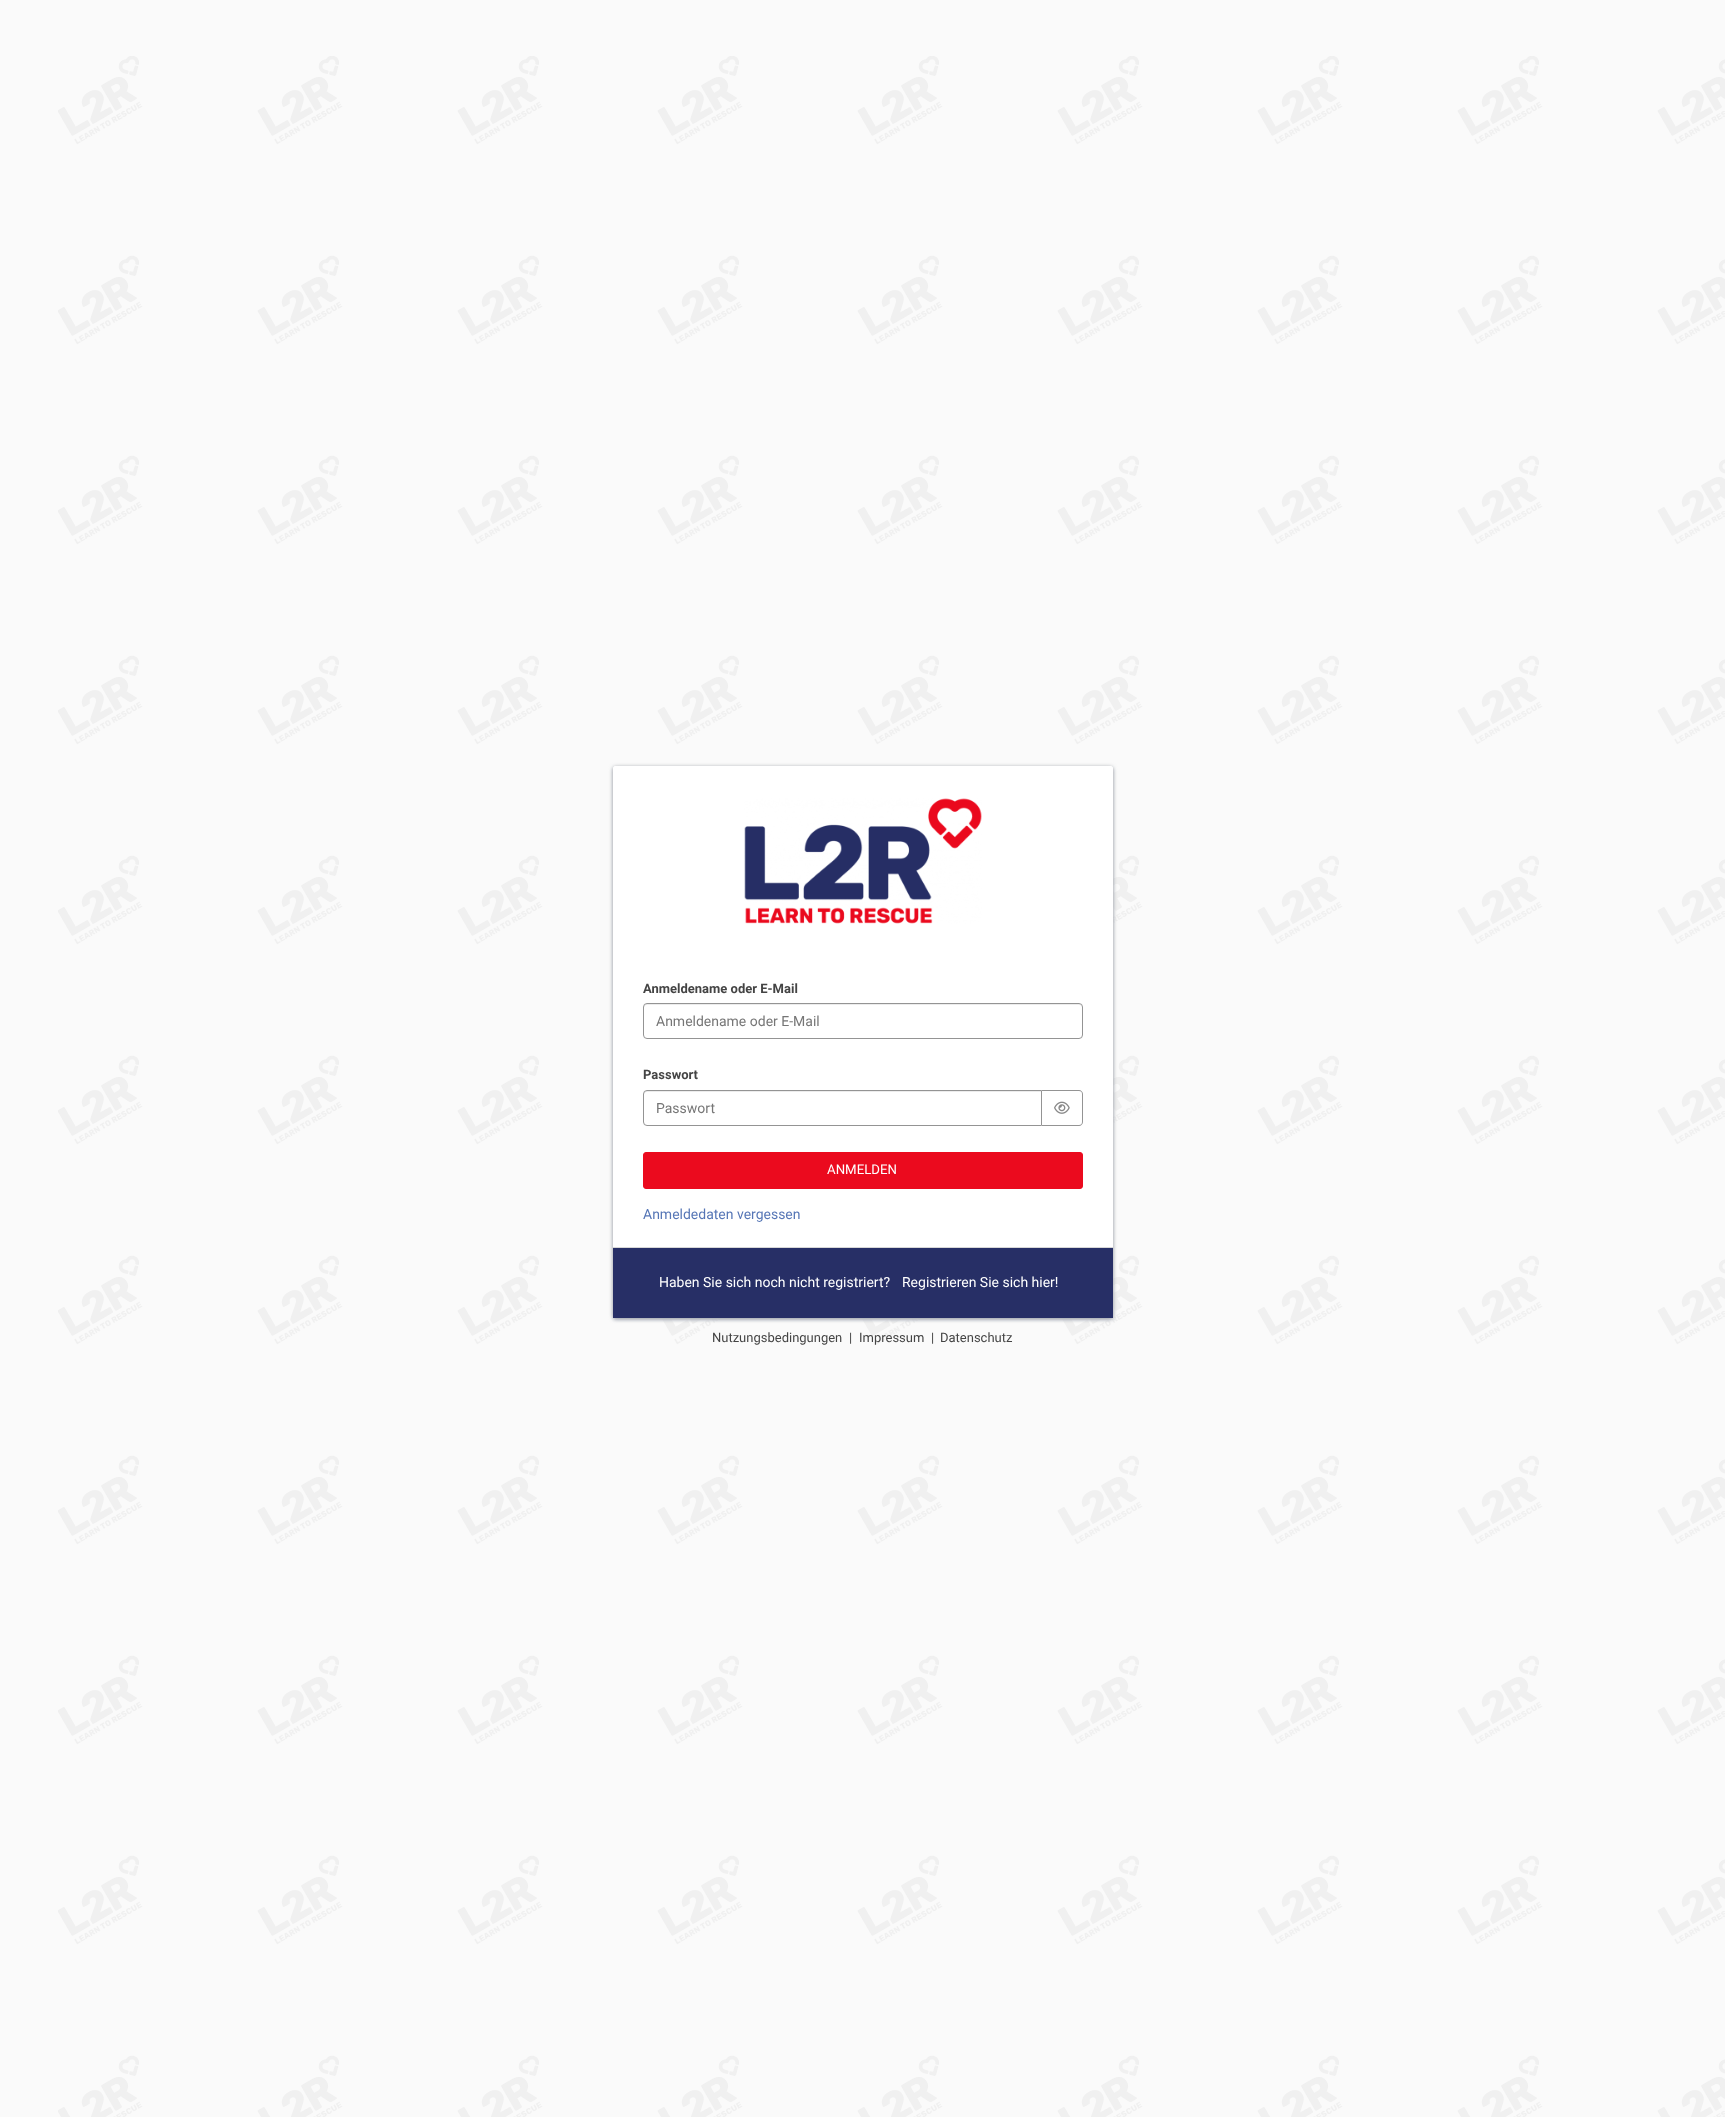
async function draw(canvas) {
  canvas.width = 1725
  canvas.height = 2117
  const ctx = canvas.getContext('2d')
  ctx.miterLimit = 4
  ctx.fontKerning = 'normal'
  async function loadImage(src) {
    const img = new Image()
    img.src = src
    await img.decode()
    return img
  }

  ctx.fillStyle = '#fafafa'
  ctx.fillRect(0, 0, 1725, 2117)
  ctx.drawImage(await loadImage('image0.png'), 58, 56, 1667, 2061)
  ctx.fillStyle = '#d4d8e3'
  ctx.filter = 'blur(1.5px)'
  ctx.beginPath()
  ctx.roundRect(613, 768, 500, 552, 3)
  ctx.fill()
  ctx.filter = 'none'
  ctx.fillStyle = '#9a9ea3'
  ctx.filter = 'blur(2px)'
  ctx.beginPath()
  ctx.roundRect(613, 767, 500, 552, 3)
  ctx.fill()
  ctx.filter = 'none'
  ctx.fillStyle = '#fff'
  ctx.beginPath()
  ctx.roundRect(613, 766, 500, 552, 3)
  ctx.fill()
  ctx.beginPath()
  ctx.roundRect(613, 766, 500, 190, 3)
  ctx.fill()
  ctx.drawImage(await loadImage('image1.png'), 744, 798, 238, 126)
  ctx.beginPath()
  ctx.roundRect(613, 956, 500, 362, 3)
  ctx.fill()
  ctx.font = 'bold 13px Roboto'
  ctx.fillStyle = '#444'
  ctx.fillText('Anmeldename oder E-Mail', 643, 993)
  ctx.fillStyle = '#ececec'
  ctx.beginPath()
  ctx.moveTo(647, 1005)
  ctx.lineTo(1079, 1005)
  ctx.bezierCurveTo(1081, 1005, 1082, 1006, 1082, 1008)
  ctx.bezierCurveTo(1082, 1006, 1081, 1004, 1079, 1004)
  ctx.lineTo(646, 1004)
  ctx.lineTo(644, 1006)
  ctx.lineTo(644, 1008)
  ctx.bezierCurveTo(644, 1006, 645, 1005, 647, 1005)
  ctx.closePath()
  ctx.fill()
  ctx.beginPath()
  ctx.roundRect(643.5, 1003.5, 439, 35, 3.5)
  ctx.strokeStyle = '#949494'
  ctx.stroke()
  ctx.font = '14px Roboto'
  ctx.fillStyle = '#767676'
  ctx.fillText('Anmeldename oder E-Mail', 656, 1026)
  ctx.font = 'bold 13px Roboto'
  ctx.fillStyle = '#444'
  ctx.fillText('Passwort', 643, 1079)
  ctx.fillStyle = '#ececec'
  ctx.beginPath()
  ctx.moveTo(647, 1092)
  ctx.lineTo(1041, 1092)
  ctx.lineTo(1041, 1091)
  ctx.lineTo(647, 1091)
  ctx.bezierCurveTo(645, 1091, 644, 1092, 644, 1094)
  ctx.lineTo(644, 1095)
  ctx.bezierCurveTo(644, 1093, 645, 1092, 647, 1092)
  ctx.closePath()
  ctx.fill()
  ctx.beginPath()
  ctx.roundRect(643.5, 1090.5, 398, 35, [3.5, 0, 0, 3.5])
  ctx.stroke()
  ctx.font = '14px Roboto'
  ctx.fillStyle = '#767676'
  ctx.fillText('Passwort', 656, 1113)
  ctx.fillStyle = '#949494'
  ctx.beginPath()
  ctx.moveTo(1042, 1090)
  ctx.lineTo(1079, 1090)
  ctx.bezierCurveTo(1081, 1090, 1083, 1092, 1083, 1094)
  ctx.lineTo(1083, 1122)
  ctx.bezierCurveTo(1083, 1124, 1081, 1126, 1079, 1126)
  ctx.lineTo(1042, 1126)
  ctx.closePath()
  ctx.moveTo(1042, 1091)
  ctx.lineTo(1079, 1091)
  ctx.bezierCurveTo(1081, 1091, 1082, 1092, 1082, 1094)
  ctx.lineTo(1082, 1122)
  ctx.bezierCurveTo(1082, 1124, 1081, 1125, 1079, 1125)
  ctx.lineTo(1042, 1125)
  ctx.closePath()
  ctx.fill('evenodd')
  ctx.drawImage(await loadImage('image2.png'), 1054, 1101, 16, 13)
  ctx.fillStyle = '#eb0a1e'
  ctx.beginPath()
  ctx.roundRect(643.5, 1152.5, 439, 36, 2.5)
  ctx.fill()
  ctx.strokeStyle = '#eb0a1e'
  ctx.stroke()
  ctx.font = '13.25px Roboto'
  ctx.fillStyle = '#fff'
  ctx.fillText('ANMELDEN', 827, 1174)
  ctx.font = '14px Roboto'
  ctx.fillStyle = '#5676b6'
  ctx.fillText('Anmeldedaten vergessen', 643, 1219)
  ctx.fillStyle = '#272f66'
  ctx.fillRect(613, 1248, 500, 70)
  ctx.fillStyle = '#d7d7d7'
  ctx.fillRect(613, 1247, 500, 1)
  ctx.fillStyle = '#fff'
  ctx.fillText('Haben Sie sich noch nicht registriert?', 659, 1287)
  ctx.fillText('Registrieren Sie sich hier!', 902, 1287)
  ctx.font = '13px Roboto'
  ctx.fillStyle = '#444'
  ctx.fillText('Nutzungsbedingungen', 712, 1342)
  ctx.fillText('|', 849, 1342)
  ctx.fillText('Impressum', 859, 1342)
  ctx.fillText('|', 931, 1342)
  ctx.fillText('Datenschutz', 940, 1342)
}

draw(document.querySelector('canvas'))
